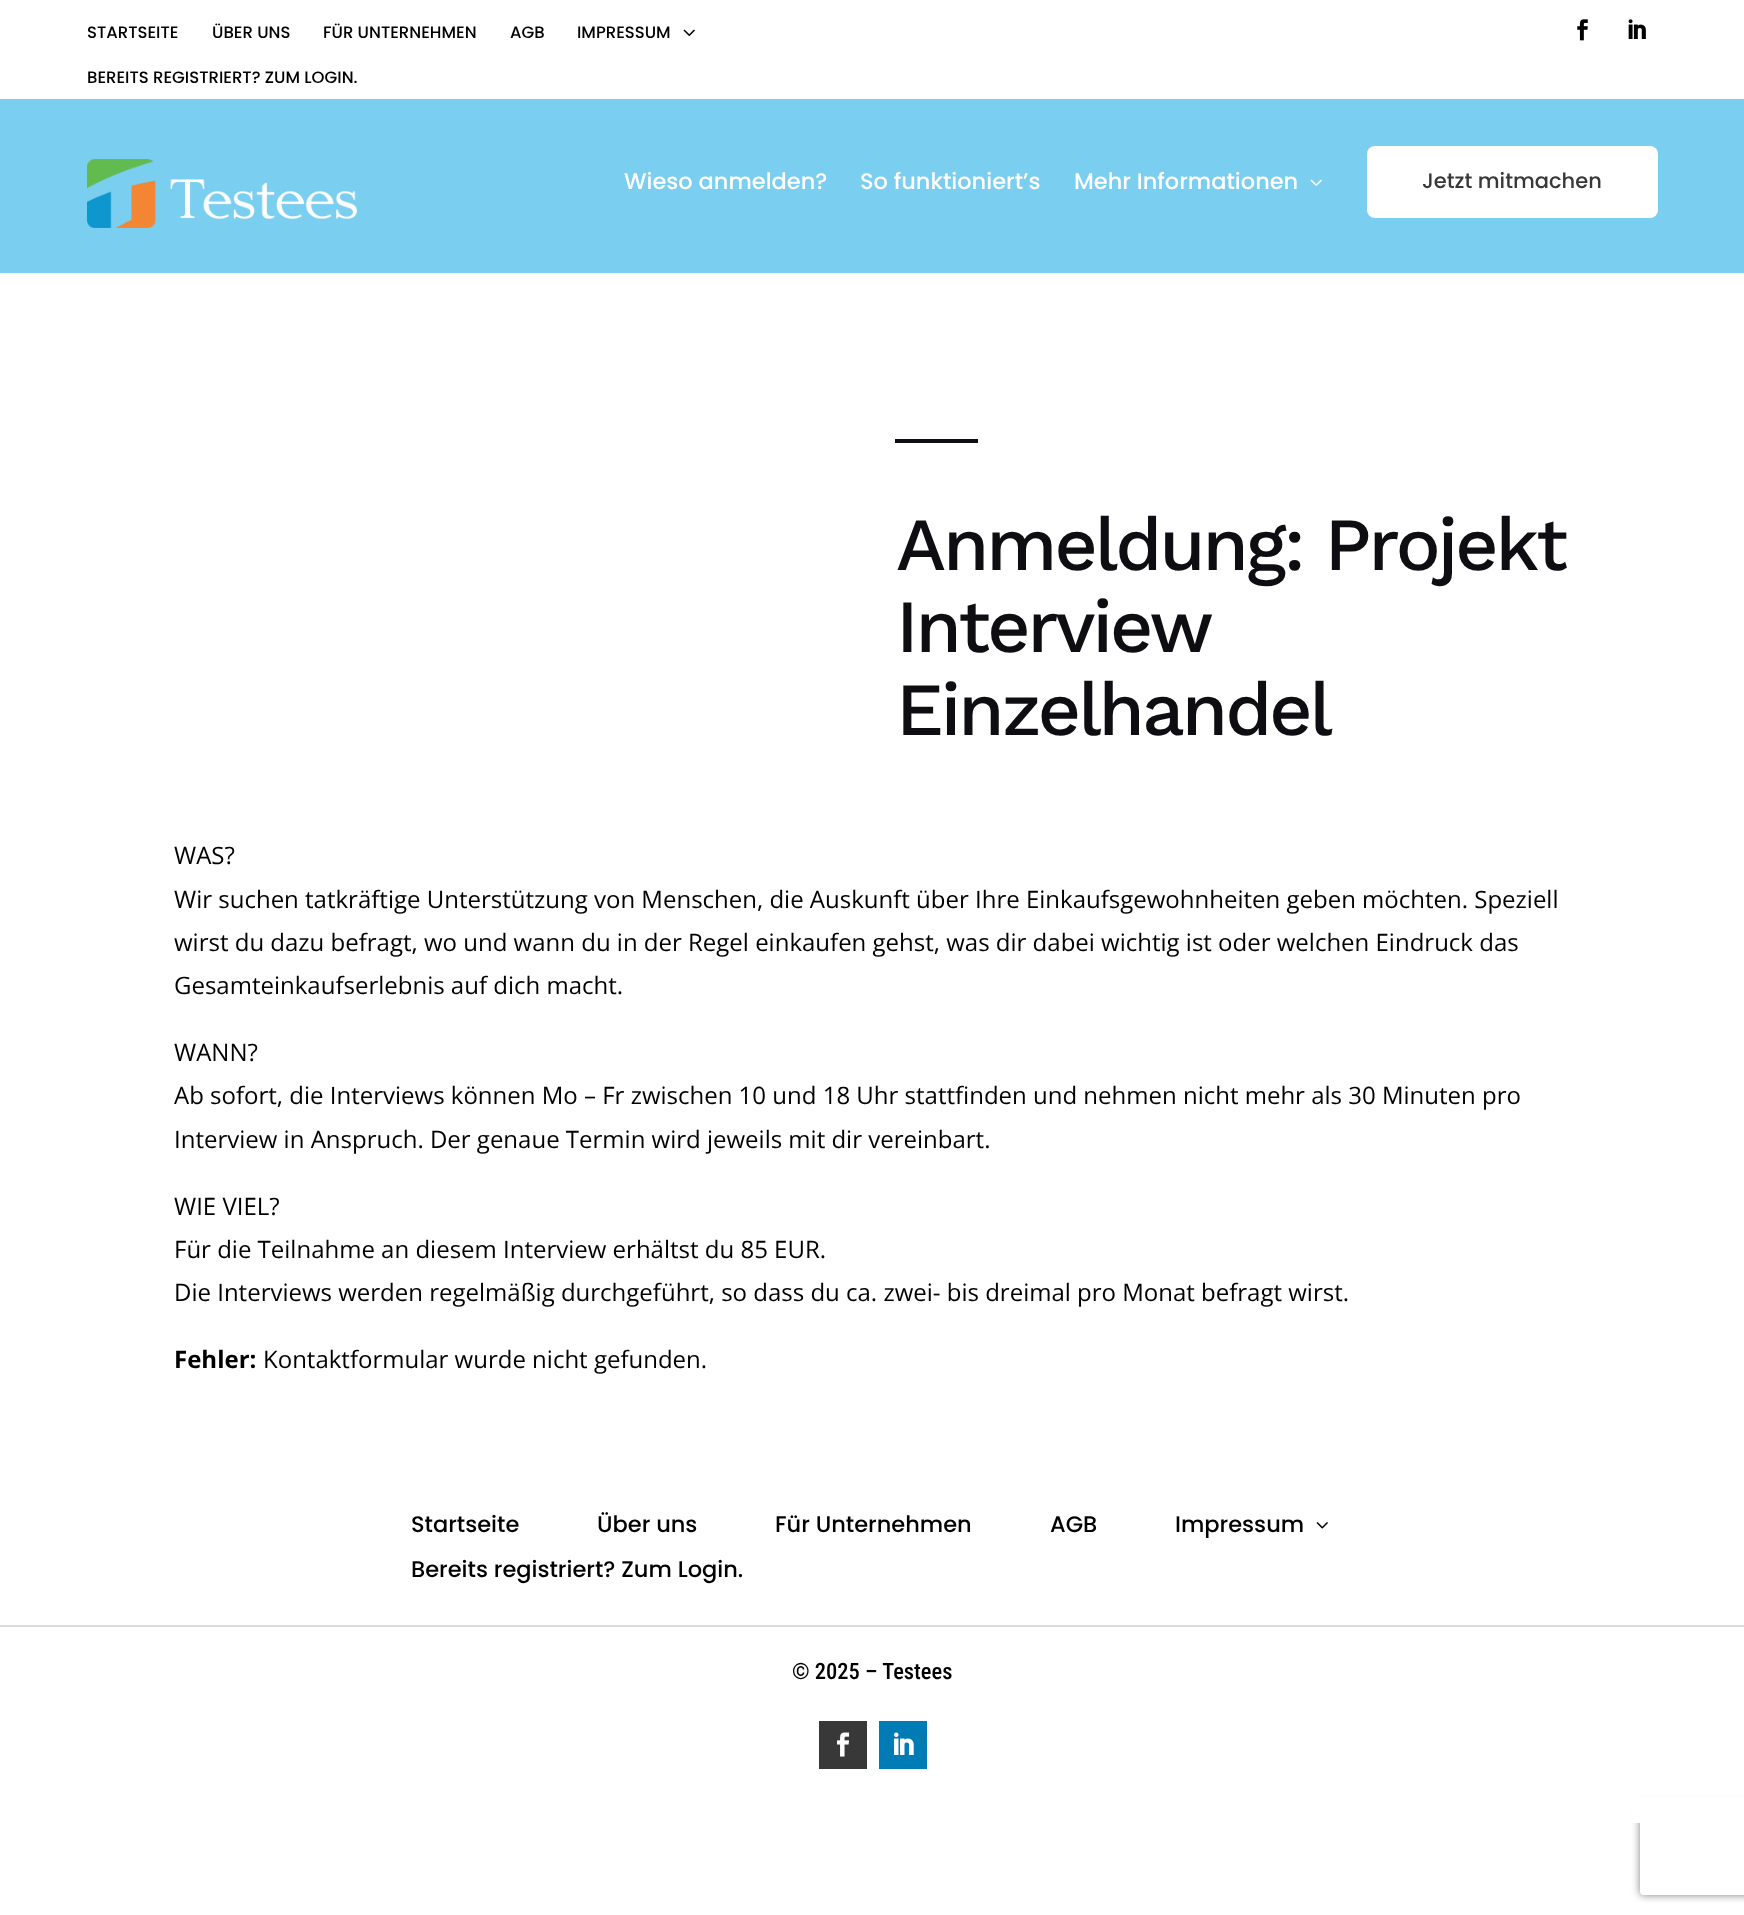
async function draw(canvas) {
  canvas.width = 1744
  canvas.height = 1915
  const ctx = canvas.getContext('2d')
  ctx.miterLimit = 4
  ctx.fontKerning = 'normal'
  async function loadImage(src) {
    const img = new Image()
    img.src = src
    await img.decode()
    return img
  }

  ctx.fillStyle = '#fff'
  ctx.fillRect(0, 0, 1744, 1915)
  ctx.font = '500 16.5px Poppins'
  ctx.fillStyle = '#000'
  ctx.fillText('STARTSEITE', 87, 38)
  ctx.fillText('ÜBER UNS', 212, 38)
  ctx.fillText('FÜR UNTERNEHMEN', 323, 38)
  ctx.fillText('AGB', 510, 38)
  ctx.fillText('IMPRESSUM', 577, 38)
  ctx.drawImage(await loadImage('image0.png'), 683, 29, 12, 7)
  ctx.fillText('BEREITS REGISTRIERT? ZUM LOGIN.', 87, 83)
  ctx.drawImage(await loadImage('image1.png'), 1577, 19, 11, 22)
  ctx.drawImage(await loadImage('image2.png'), 1628, 19, 18, 20)
  ctx.fillStyle = '#7aceef'
  ctx.fillRect(0, 99, 1744, 174)
  ctx.drawImage(await loadImage('image3.png'), 87, 159, 270, 69)
  ctx.font = '500 22.5px Poppins'
  ctx.fillStyle = '#fff'
  ctx.fillText('Wieso anmelden?', 624, 189)
  ctx.fillText('So funktioniert’s', 860, 189)
  ctx.fillText('Mehr Informationen', 1074, 189)
  ctx.drawImage(await loadImage('image4.png'), 1310, 179, 12, 7)
  ctx.beginPath()
  ctx.roundRect(1367, 146, 291, 72, 8)
  ctx.fill()
  ctx.font = '500 21px Poppins'
  ctx.fillStyle = '#383838'
  ctx.fillText('Jetzt mitmachen', 1422, 188)
  ctx.fillStyle = '#0d0d12'
  ctx.fillRect(895, 439, 83, 4)
  ctx.letterSpacing = '-3px'
  ctx.font = '500 75px Work Sans'
  ctx.fillText('Anmeldung: Projekt', 896, 570)
  ctx.fillText('Interview', 896, 652)
  ctx.fillText('Einzelhandel', 896, 735)
  ctx.letterSpacing = '0px'
  ctx.font = '24px Open Sans'
  ctx.fillStyle = '#000'
  ctx.fillText('WAS?', 174, 864)
  ctx.fillText('Wir suchen tatkräftige Unterstützung von Menschen, die Auskunft über Ihre Einkaufsgewohnheiten geben möchten. Speziell', 174, 908)
  ctx.fillText('wirst du dazu befragt, wo und wann du in der Regel einkaufen gehst, was dir dabei wichtig ist oder welchen Eindruck das', 174, 951)
  ctx.fillText('Gesamteinkaufserlebnis auf dich macht.', 174, 994)
  ctx.fillText('WANN?', 174, 1061)
  ctx.fillText('Ab sofort, die Interviews können Mo – Fr zwischen 10 und 18 Uhr stattfinden und nehmen nicht mehr als 30 Minuten pro', 174, 1104)
  ctx.fillText('Interview in Anspruch. Der genaue Termin wird jeweils mit dir vereinbart.', 174, 1148)
  ctx.fillText('WIE VIEL?', 174, 1215)
  ctx.fillText('Für die Teilnahme an diesem Interview erhältst du 85 EUR.', 174, 1258)
  ctx.fillText('Die Interviews werden regelmäßig durchgeführt, so dass du ca. zwei- bis dreimal pro Monat befragt wirst.', 174, 1301)
  ctx.font = 'bold 24px Open Sans'
  ctx.fillText('Fehler:', 174, 1368)
  ctx.font = '24px Open Sans'
  ctx.fillText('Kontaktformular wurde nicht gefunden.', 263, 1368)
  ctx.save()
  ctx.beginPath()
  ctx.moveTo(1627, 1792)
  ctx.lineTo(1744, 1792)
  ctx.lineTo(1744, 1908)
  ctx.lineTo(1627, 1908)
  ctx.closePath()
  ctx.moveTo(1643, 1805)
  ctx.lineTo(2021, 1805)
  ctx.bezierCurveTo(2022.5, 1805, 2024, 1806.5, 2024, 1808)
  ctx.lineTo(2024, 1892)
  ctx.bezierCurveTo(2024, 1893.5, 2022.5, 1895, 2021, 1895)
  ctx.lineTo(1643, 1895)
  ctx.bezierCurveTo(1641.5, 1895, 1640, 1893.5, 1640, 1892)
  ctx.lineTo(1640, 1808)
  ctx.bezierCurveTo(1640, 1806.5, 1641.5, 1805, 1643, 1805)
  ctx.closePath()
  ctx.clip('evenodd')
  ctx.fillStyle = '#808080'
  ctx.filter = 'blur(4px)'
  ctx.beginPath()
  ctx.roundRect(1640, 1805, 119, 90, 3)
  ctx.fill()
  ctx.filter = 'none'
  ctx.restore()
  ctx.fillStyle = '#fff'
  ctx.fillRect(1632, 1797, 112, 26)
  ctx.font = '500 22.5px Poppins'
  ctx.fillStyle = '#000'
  ctx.fillText('Startseite', 411, 1532)
  ctx.fillText('Über uns', 597, 1532)
  ctx.fillText('Für Unternehmen', 775, 1532)
  ctx.fillText('AGB', 1050, 1532)
  ctx.fillText('Impressum', 1175, 1532)
  ctx.drawImage(await loadImage('image5.png'), 1316, 1522, 12, 7)
  ctx.fillText('Bereits registriert? Zum Login.', 411, 1577)
  ctx.fillStyle = '#dbdbdb'
  ctx.fillRect(0, 1625, 1744, 2)
  ctx.font = '500 22.5px Roboto Condensed'
  ctx.fillStyle = '#000'
  ctx.fillText('© 2025 – Testees', 792, 1679)
  ctx.fillStyle = '#383838'
  ctx.fillRect(819, 1721, 48, 48)
  ctx.drawImage(await loadImage('image6.png'), 837, 1732, 13, 25)
  ctx.fillStyle = '#007bb6'
  ctx.fillRect(879, 1721, 48, 48)
  ctx.drawImage(await loadImage('image7.png'), 894, 1732, 20, 23)
}

draw(document.querySelector('canvas'))
